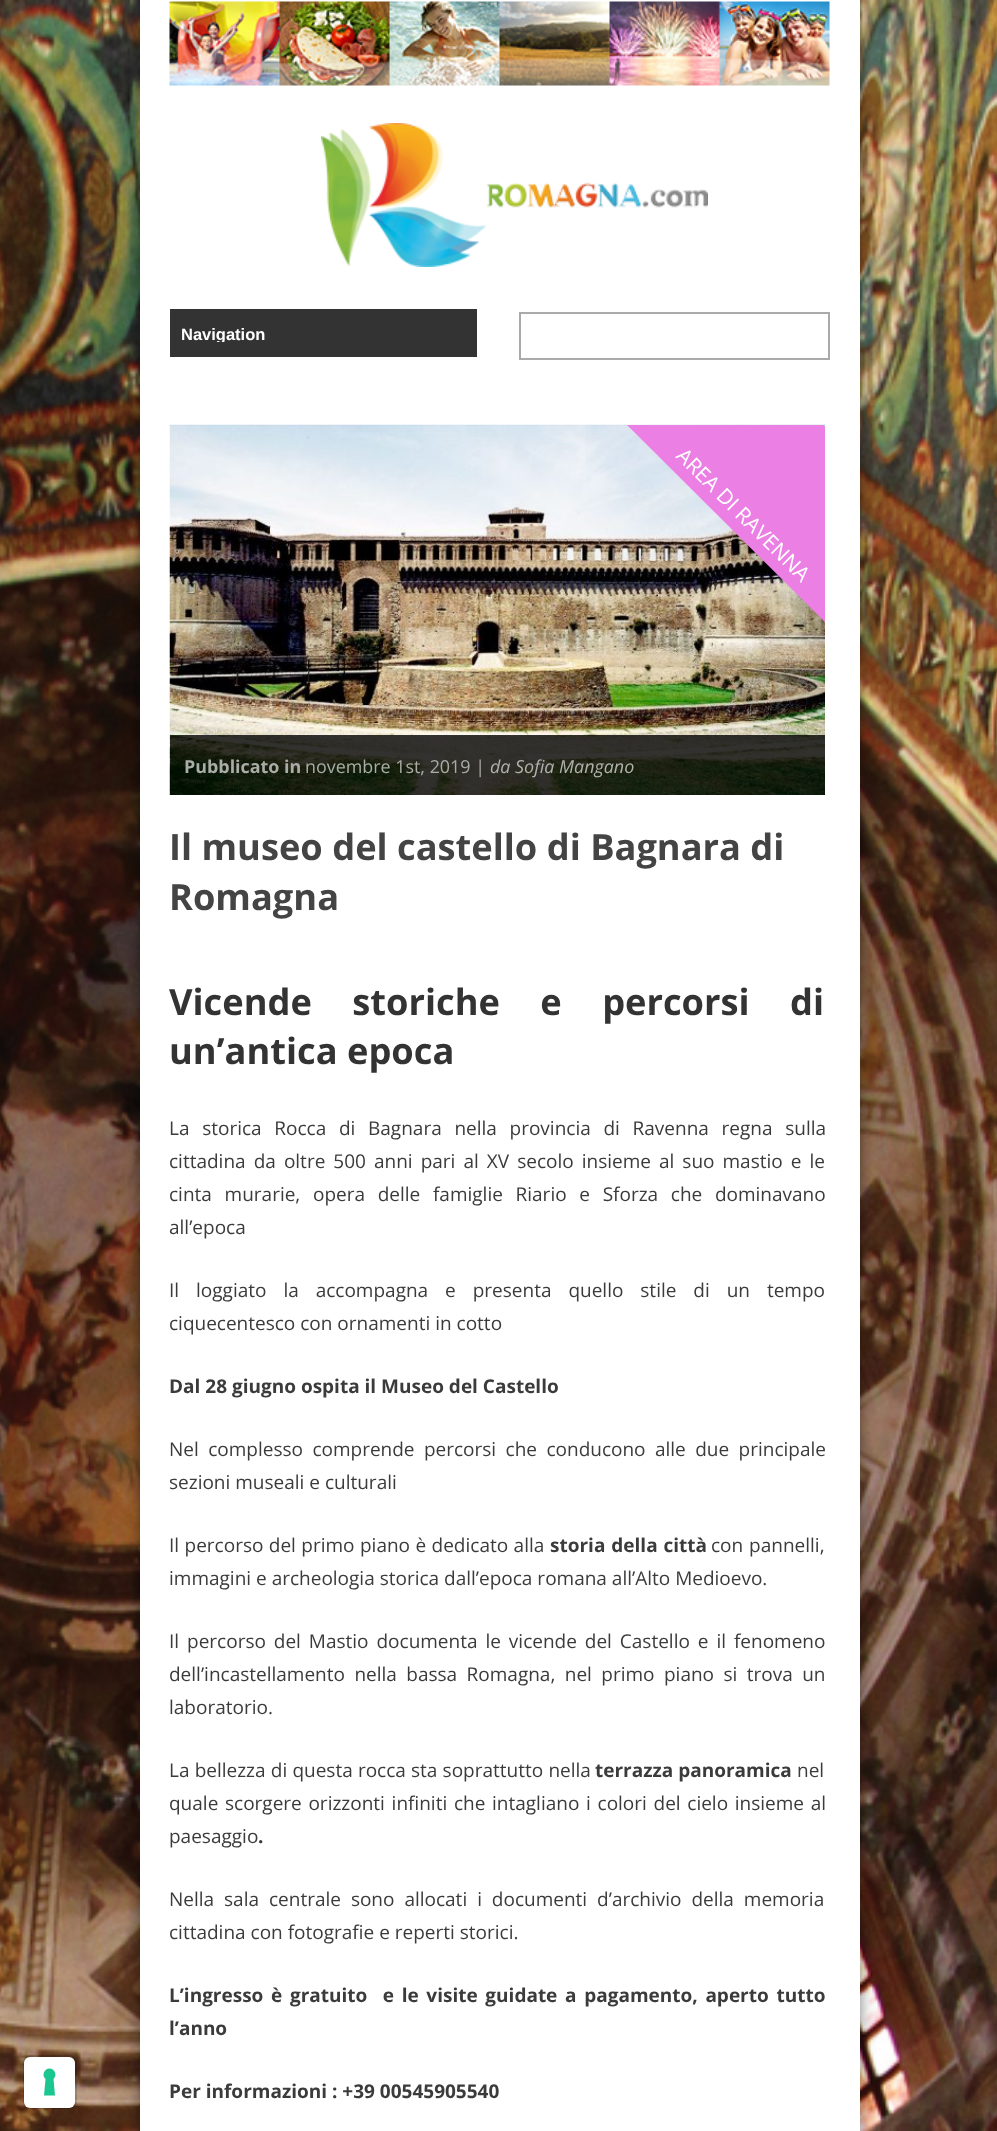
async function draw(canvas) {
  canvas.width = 997
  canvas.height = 2131
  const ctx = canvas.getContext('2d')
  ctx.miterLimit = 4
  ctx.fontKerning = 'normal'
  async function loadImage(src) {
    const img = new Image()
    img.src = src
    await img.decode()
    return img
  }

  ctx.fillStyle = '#fff'
  ctx.fillRect(0, 0, 997, 2131)
  ctx.drawImage(await loadImage('image0.png'), 0, 0, 997, 2131)
  ctx.beginPath()
  ctx.roundRect(24, 2056, 52, 52, 7)
  ctx.strokeStyle = '#00000026'
  ctx.lineWidth = 2
  ctx.stroke()
  ctx.beginPath()
  ctx.roundRect(24, 2057, 51, 51, 6)
  ctx.fill()
  ctx.fillStyle = '#1cc691'
  ctx.beginPath()
  ctx.moveTo(49.5, 2068.5)
  ctx.bezierCurveTo(55, 2068.5, 57.5, 2075.5, 53.5, 2079)
  ctx.lineTo(55, 2095.5)
  ctx.lineTo(44, 2095.5)
  ctx.lineTo(45.5, 2079)
  ctx.bezierCurveTo(41.5, 2075.5, 44, 2068.5, 49.5, 2068.5)
  ctx.closePath()
  ctx.fill('evenodd')
  ctx.fillStyle = '#00000080'
  ctx.filter = 'blur(7.5px)'
  ctx.beginPath()
  ctx.rect(140, 0, 720, 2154)
  ctx.fill()
  ctx.filter = 'none'
  ctx.fillStyle = '#fff'
  ctx.fillRect(140, 0, 720, 2131)
  ctx.drawImage(await loadImage('image1.png'), 169, 1, 661, 85)
  ctx.drawImage(await loadImage('image2.png'), 321, 123, 387, 144)
  ctx.fillStyle = '#333'
  ctx.fillRect(170, 309, 307, 48)
  ctx.save()
  ctx.beginPath()
  ctx.rect(182, 324, 295, 18)
  ctx.clip()
  ctx.font = 'bold 16.5px Liberation Sans'
  ctx.fillStyle = '#fff'
  ctx.fillText('Navigation', 181, 340)
  ctx.restore()
  ctx.strokeStyle = '#aaa'
  ctx.strokeRect(520, 313, 309, 46)
  ctx.drawImage(await loadImage('image3.png'), 169, 424, 656, 371)
  ctx.save()
  ctx.beginPath()
  ctx.rect(170, 425, 655, 370)
  ctx.clip()
  ctx.fillStyle = '#eb7fe4'
  ctx.beginPath()
  ctx.moveTo(722, 324)
  ctx.lineTo(934, 536)
  ctx.lineTo(837, 634)
  ctx.lineTo(624, 422)
  ctx.closePath()
  ctx.fill()
  ctx.restore()
  ctx.font = '21px Open Sans'
  ctx.fillStyle = '#fff'
  ctx.save()
  ctx.translate(675, 457)
  ctx.rotate(45 * Math.PI / 180)
  ctx.fillText('AREA DI RAVENNA', 0, 0)
  ctx.restore()
  ctx.fillStyle = '#000000cc'
  ctx.fillRect(170, 735, 655, 60)
  ctx.font = 'bold 17.9px Open Sans'
  ctx.fillStyle = '#aaada7'
  ctx.fillText('Pubblicato in', 184, 773)
  ctx.font = '17.9px Open Sans'
  ctx.fillText('novembre 1st, 2019 |', 305, 773)
  ctx.font = 'italic 17.9px Open Sans'
  ctx.fillStyle = '#b1b2ad'
  ctx.fillText('da Sofia Mangano', 490, 773)
  ctx.font = 'bold 36.25px Open Sans'
  ctx.fillStyle = '#444'
  ctx.fillText('Il museo del castello di Bagnara di', 169, 860)
  ctx.fillText('Romagna', 169, 910)
  ctx.wordSpacing = '31px'
  ctx.fillStyle = '#333'
  ctx.fillText('Vicende storiche e percorsi di', 169, 1015)
  ctx.wordSpacing = '0px'
  ctx.fillText('un’antica epoca', 169, 1064)
  ctx.wordSpacing = '7.75px'
  ctx.font = '19px Open Sans'
  ctx.fillStyle = '#3b3b3b'
  ctx.fillText('La storica Rocca di Bagnara nella provincia di Ravenna regna sulla', 169, 1135)
  ctx.wordSpacing = '3.1px'
  ctx.fillText('cittadina da oltre 500 anni pari al XV secolo insieme al suo mastio e le', 169, 1168)
  ctx.wordSpacing = '7.75px'
  ctx.fillText('cinta murarie, opera delle famiglie Riario e Sforza che dominavano', 169, 1201)
  ctx.wordSpacing = '0px'
  ctx.fillText('all’epoca', 169, 1234)
  ctx.wordSpacing = '12px'
  ctx.fillText('Il loggiato la accompagna e presenta quello stile di un tempo', 169, 1297)
  ctx.wordSpacing = '0px'
  ctx.fillText('ciquecentesco con ornamenti in cotto', 169, 1330)
  ctx.font = 'bold 19px Open Sans'
  ctx.fillText('Dal 28 giugno ospita il Museo del Castello', 169, 1393)
  ctx.wordSpacing = '4.5px'
  ctx.font = '19px Open Sans'
  ctx.fillText('Nel complesso comprende percorsi che conducono alle due principale', 169, 1456)
  ctx.wordSpacing = '0px'
  ctx.fillText('sezioni museali e culturali', 169, 1489)
  ctx.wordSpacing = '0.5px'
  ctx.fillText('Il percorso del primo piano è dedicato alla', 169, 1552)
  ctx.wordSpacing = '1px'
  ctx.font = 'bold 19px Open Sans'
  ctx.fillText('storia della città', 550, 1552)
  ctx.font = '19px Open Sans'
  ctx.fillText('con pannelli,', 711, 1552)
  ctx.wordSpacing = '0px'
  ctx.fillText('immagini e archeologia storica dall’epoca romana all’Alto Medioevo.', 169, 1585)
  ctx.wordSpacing = '3px'
  ctx.fillText('Il percorso del Mastio documenta le vicende del Castello e il fenomeno', 169, 1648)
  ctx.wordSpacing = '4.5px'
  ctx.fillText('dell’incastellamento nella bassa Romagna, nel primo piano si trova un', 169, 1681)
  ctx.wordSpacing = '0px'
  ctx.fillText('laboratorio.', 169, 1714)
  ctx.wordSpacing = '0.25px'
  ctx.fillText('La bellezza di questa rocca sta soprattutto nella', 169, 1777)
  ctx.wordSpacing = '0px'
  ctx.font = 'bold 19px Open Sans'
  ctx.fillText('terrazza panoramica', 595, 1777)
  ctx.font = '19px Open Sans'
  ctx.fillText('nel', 797, 1777)
  ctx.wordSpacing = '1.75px'
  ctx.fillText('quale scorgere orizzonti infiniti che intagliano i colori del cielo insieme al', 169, 1810)
  ctx.wordSpacing = '0px'
  ctx.fillText('paesaggio', 169, 1843)
  ctx.font = 'bold 19px Open Sans'
  ctx.fillText('.', 258, 1843)
  ctx.wordSpacing = '5px'
  ctx.font = '19px Open Sans'
  ctx.fillText('Nella sala centrale sono allocati i documenti d’archivio della memoria', 169, 1906)
  ctx.wordSpacing = '0px'
  ctx.fillText('cittadina con fotografie e reperti storici.', 169, 1939)
  ctx.wordSpacing = '2.75px'
  ctx.font = 'bold 19px Open Sans'
  ctx.fillText('L’ingresso è gratuito  e le visite guidate a pagamento, aperto tutto', 169, 2002)
  ctx.wordSpacing = '0px'
  ctx.fillText('l’anno', 169, 2035)
  ctx.fillText('Per informazioni : +39 00545905540', 169, 2098)
}

draw(document.querySelector('canvas'))
